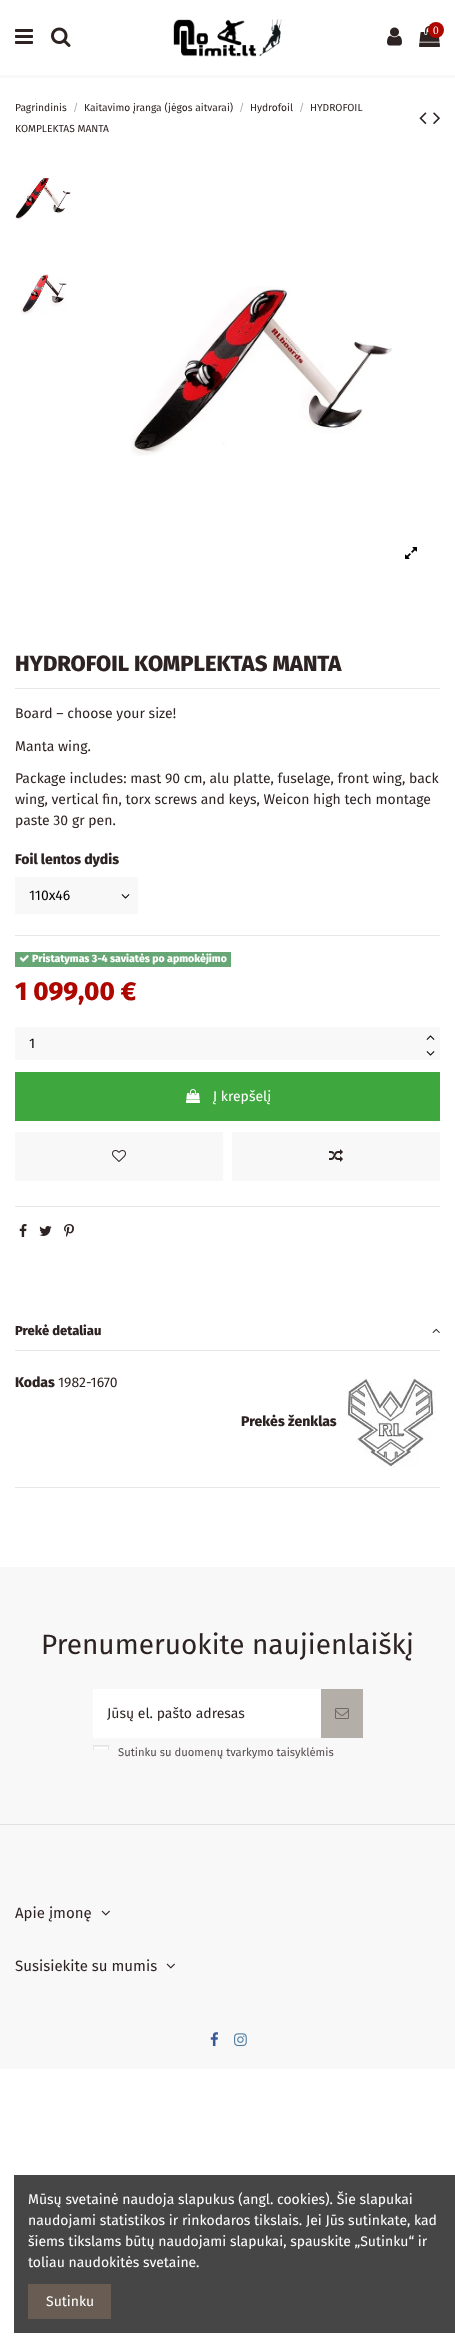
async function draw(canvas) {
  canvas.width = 455
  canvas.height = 2347
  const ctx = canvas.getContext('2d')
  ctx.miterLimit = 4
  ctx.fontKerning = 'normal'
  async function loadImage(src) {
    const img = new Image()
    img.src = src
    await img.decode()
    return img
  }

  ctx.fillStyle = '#fff'
  ctx.fillRect(0, 0, 455, 2347)
  ctx.fillStyle = '#f8f8f8'
  ctx.fillRect(0, 75, 455, 3)
  ctx.drawImage(await loadImage('image0.png'), 15, 29, 18, 15)
  ctx.drawImage(await loadImage('image1.png'), 51, 27, 20, 20)
  ctx.drawImage(await loadImage('image2.png'), 173, 19, 109, 38)
  ctx.drawImage(await loadImage('image3.png'), 387, 27, 15, 19)
  ctx.drawImage(await loadImage('image4.png'), 419, 26, 21, 21)
  ctx.fillStyle = '#ad0700'
  ctx.beginPath()
  ctx.arc(436, 30, 8, 0, 2 * Math.PI)
  ctx.fill()
  ctx.font = '11.25px Liberation Serif'
  ctx.fillStyle = '#fff'
  ctx.fillText('0', 433, 34)
  ctx.font = '10.25px Fira Sans'
  ctx.fillStyle = '#2e2323'
  ctx.fillText('Pagrindinis', 15, 111)
  ctx.fillStyle = '#aba7a7'
  ctx.fillText('/', 73, 111)
  ctx.fillStyle = '#2e2323'
  ctx.fillText('Kaitavimo įranga (jėgos aitvarai)', 84, 111)
  ctx.fillStyle = '#aba7a7'
  ctx.fillText('/', 239, 111)
  ctx.fillStyle = '#2e2323'
  ctx.fillText('Hydrofoil', 250, 111)
  ctx.fillStyle = '#aba7a7'
  ctx.fillText('/', 299, 111)
  ctx.fillStyle = '#2e2323'
  ctx.fillText('HYDROFOIL', 310, 111)
  ctx.fillText('KOMPLEKTAS MANTA', 15, 132)
  ctx.drawImage(await loadImage('image5.png'), 419, 112, 8, 12)
  ctx.drawImage(await loadImage('image6.png'), 433, 112, 7, 12)
  ctx.drawImage(await loadImage('image7.png'), 15, 176, 56, 44)
  ctx.drawImage(await loadImage('image8.png'), 20, 274, 47, 41)
  ctx.drawImage(await loadImage('image9.png'), 130, 286, 262, 170)
  ctx.drawImage(await loadImage('image10.png'), 405, 547, 12, 12)
  ctx.fillStyle = '#e7e7e7'
  ctx.fillRect(15, 688, 425, 1)
  ctx.font = '800 22px Fira Sans'
  ctx.fillStyle = '#2e2323'
  ctx.fillText('HYDROFOIL KOMPLEKTAS MANTA', 15, 671)
  ctx.font = '14px Fira Sans'
  ctx.fillText('Board – choose your size!', 15, 718)
  ctx.fillText('Manta wing.', 15, 751)
  ctx.fillText('Package includes: mast 90 cm, alu platte, fuselage, front wing, back', 15, 783)
  ctx.fillText('wing, vertical fin, torx screws and keys, Weicon high tech montage', 15, 804)
  ctx.fillText('paste 30 gr pen.', 15, 825)
  ctx.font = '800 14px Fira Sans'
  ctx.fillText('Foil lentos dydis', 15, 864)
  ctx.fillStyle = '#f8f8f8'
  ctx.fillRect(15, 877, 123, 37)
  ctx.font = '14px Fira Sans'
  ctx.fillStyle = '#000'
  ctx.fillText('110x46', 29, 900)
  ctx.drawImage(await loadImage('image11.png'), 121, 894, 9, 5)
  ctx.fillStyle = '#e7e7e7'
  ctx.fillRect(15, 935, 425, 1)
  ctx.fillStyle = '#67a675'
  ctx.fillRect(15, 952, 216, 15)
  ctx.drawImage(await loadImage('image12.png'), 19, 955, 10, 7)
  ctx.font = '800 10.5px Fira Sans'
  ctx.fillStyle = '#fff'
  ctx.fillText('Pristatymas 3-4 saviatės po apmokėjimo', 32, 962)
  ctx.font = '800 26px Fira Sans'
  ctx.fillStyle = '#ad0700'
  ctx.fillText('1 099,00 €', 15, 1000)
  ctx.fillStyle = '#f8f8f8'
  ctx.fillRect(15, 1027, 405, 33)
  ctx.font = '14px Fira Sans'
  ctx.fillStyle = '#000'
  ctx.fillText('1', 29, 1048)
  ctx.fillStyle = '#f8f8f8'
  ctx.fillRect(420, 1027, 20, 33)
  ctx.drawImage(await loadImage('image13.png'), 426, 1035, 9, 5)
  ctx.drawImage(await loadImage('image11.png'), 426, 1051, 9, 5)
  ctx.fillStyle = '#3ea73e'
  ctx.fillRect(15, 1072, 425, 49)
  ctx.drawImage(await loadImage('image14.png'), 186, 1089, 14, 14)
  ctx.fillStyle = '#fff'
  ctx.fillText('Į krepšelį', 213, 1101)
  ctx.fillStyle = '#f8f8f8'
  ctx.fillRect(15, 1132, 208, 49)
  ctx.drawImage(await loadImage('image15.png'), 112, 1150, 14, 12)
  ctx.fillRect(232, 1132, 208, 49)
  ctx.drawImage(await loadImage('image16.png'), 329, 1149, 14, 13)
  ctx.fillStyle = '#e7e7e7'
  ctx.fillRect(15, 1206, 425, 1)
  ctx.drawImage(await loadImage('image17.png'), 19, 1224, 8, 13)
  ctx.drawImage(await loadImage('image18.png'), 39, 1226, 13, 10)
  ctx.drawImage(await loadImage('image19.png'), 64, 1224, 10, 13)
  ctx.fillRect(15, 1350, 425, 1)
  ctx.font = '800 13px Fira Sans'
  ctx.fillStyle = '#2e2323'
  ctx.fillText('Prekė detaliau', 15, 1335)
  ctx.drawImage(await loadImage('image20.png'), 432, 1328, 8, 5)
  ctx.fillStyle = '#e7e7e7'
  ctx.fillRect(15, 1487, 425, 1)
  ctx.font = '800 14px Fira Sans'
  ctx.fillStyle = '#2e2323'
  ctx.fillText('Kodas', 15, 1387)
  ctx.font = '14px Fira Sans'
  ctx.fillText('1982-1670', 58, 1387)
  ctx.font = '800 14px Fira Sans'
  ctx.fillText('Prekės ženklas', 241, 1426)
  ctx.drawImage(await loadImage('image21.png'), 348, 1378, 88, 90)
  ctx.fillStyle = '#f8f8f8'
  ctx.fillRect(0, 1567, 455, 502)
  ctx.font = '28px Fira Sans'
  ctx.fillStyle = '#2e2323'
  ctx.fillText('Prenumeruokite naujienlaiškį', 41, 1654)
  ctx.fillStyle = '#fff'
  ctx.fillRect(93, 1689, 228, 49)
  ctx.font = '14px Fira Sans'
  ctx.fillStyle = '#2e2323'
  ctx.fillText('Jūsų el. pašto adresas', 107, 1718)
  ctx.fillStyle = '#b4aea9'
  ctx.fillRect(321, 1689, 42, 49)
  ctx.drawImage(await loadImage('image22.png'), 335, 1708, 14, 11)
  ctx.fillStyle = '#fefefe'
  ctx.fillRect(94, 1747, 14, 3)
  ctx.fillStyle = '#ececec'
  ctx.fillRect(94, 1746, 14, 1)
  ctx.strokeStyle = '#e5e5e5'
  ctx.strokeRect(93.5, 1745.5, 15, 15)
  ctx.font = '11.25px Fira Sans'
  ctx.fillStyle = '#564e4e'
  ctx.fillText('Sutinku su duomenų tvarkymo taisyklėmis', 118, 1756)
  ctx.fillStyle = '#f8f8f8'
  ctx.beginPath()
  ctx.roundRect(93.5, 1749.5, 15, 15, 1.5)
  ctx.fill()
  ctx.strokeStyle = '#f8f8f8'
  ctx.stroke()
  ctx.fillStyle = '#e2e2e2'
  ctx.fillRect(0, 1824, 455, 1)
  ctx.font = '15px Fira Sans'
  ctx.fillStyle = '#2e2323'
  ctx.fillText('Apie įmonę', 15, 1918)
  ctx.drawImage(await loadImage('image23.png'), 101, 1910, 9, 6)
  ctx.fillText('Susisiekite su mumis', 15, 1971)
  ctx.drawImage(await loadImage('image23.png'), 166, 1963, 9, 6)
  ctx.drawImage(await loadImage('image24.png'), 210, 2032, 8, 15)
  ctx.drawImage(await loadImage('image25.png'), 234, 2033, 13, 14)
  ctx.fillStyle = '#464646'
  ctx.fillRect(14, 2175, 441, 158)
  ctx.font = '14px Fira Sans'
  ctx.fillStyle = '#fff'
  ctx.fillText('Mūsų svetainė naudoja slapukus (angl. cookies). Šie slapukai', 28, 2204)
  ctx.fillText('naudojami statistikos ir rinkodaros tikslais. Jei Jūs sutinkate, kad', 28, 2225)
  ctx.fillText('šiems tikslams būtų naudojami slapukai, spauskite „Sutinku“ ir', 28, 2246)
  ctx.fillText('toliau naudokitės svetaine.', 28, 2267)
  ctx.fillStyle = '#695c52'
  ctx.fillRect(28, 2284, 83, 35)
  ctx.fillStyle = '#fff'
  ctx.fillText('Sutinku', 46, 2306)
}

draw(document.querySelector('canvas'))
